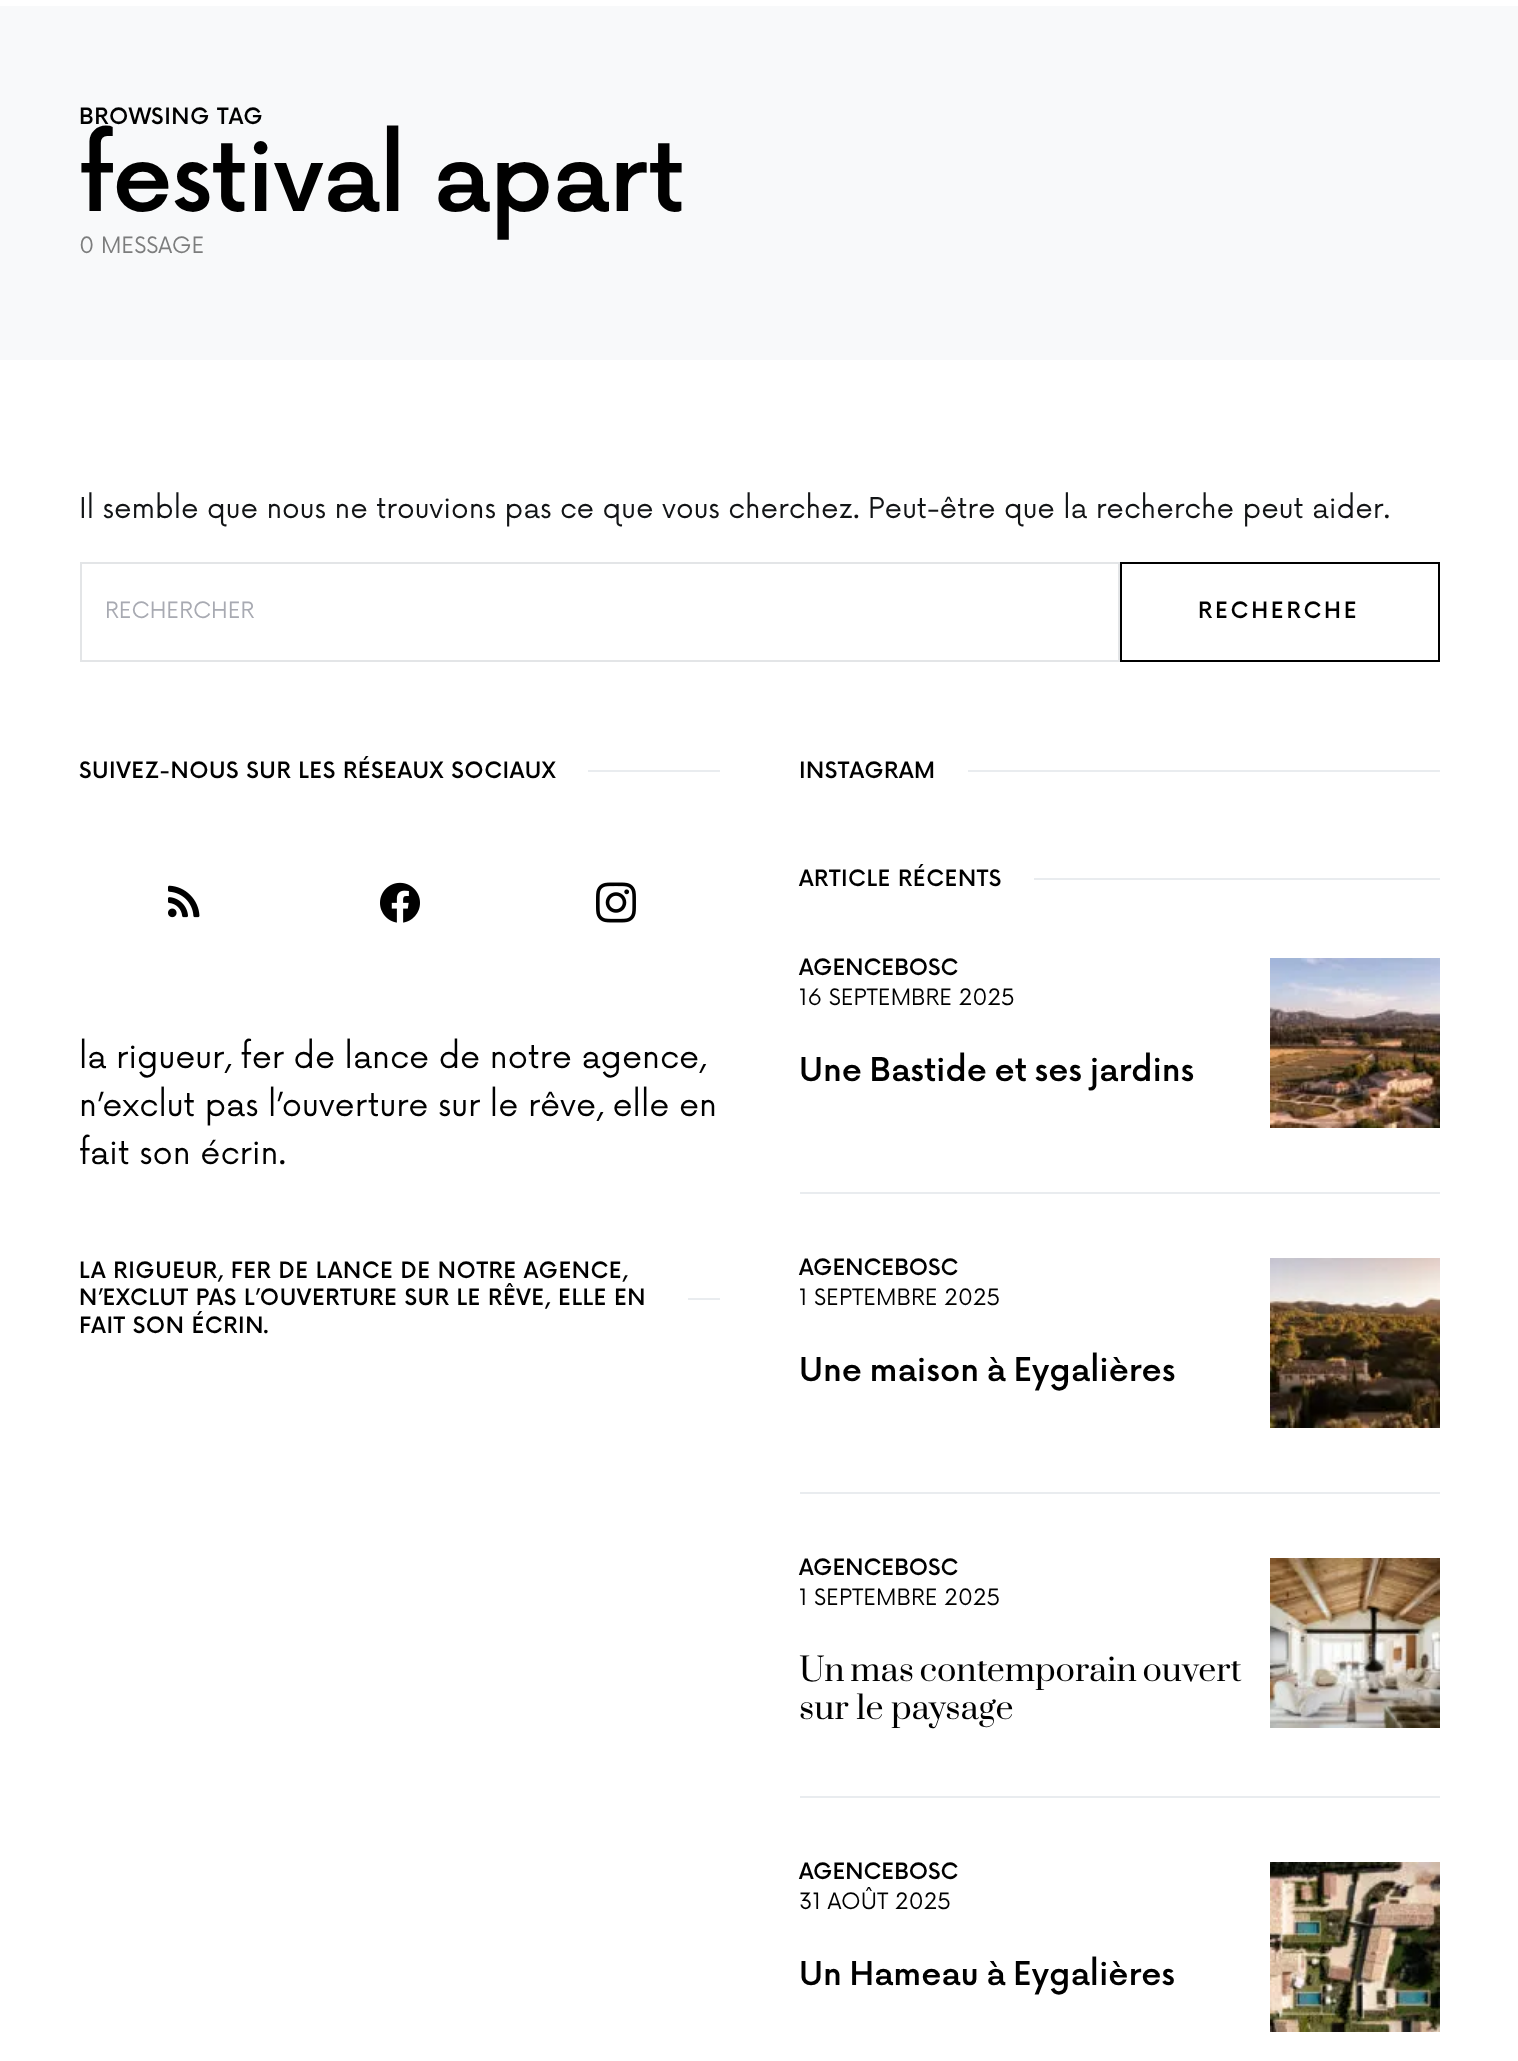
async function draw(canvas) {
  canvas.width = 1518
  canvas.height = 2061
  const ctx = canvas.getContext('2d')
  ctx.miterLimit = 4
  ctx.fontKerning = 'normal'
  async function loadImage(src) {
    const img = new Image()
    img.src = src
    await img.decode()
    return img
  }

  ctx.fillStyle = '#fff'
  ctx.fillRect(0, 0, 1518, 2061)
  ctx.fillStyle = '#f8f9fa'
  ctx.fillRect(0, 6, 1518, 354)
  ctx.letterSpacing = '0.55px'
  ctx.font = '500 22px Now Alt'
  ctx.fillStyle = '#000'
  ctx.fillText('BROWSING TAG', 79, 124)
  ctx.letterSpacing = '-1.25px'
  ctx.font = '500 96px Now Alt'
  ctx.fillText('festival apart', 79, 211)
  ctx.letterSpacing = '0px'
  ctx.font = '22px Now Alt'
  ctx.fillStyle = '#7c7d7d'
  ctx.fillText('0 MESSAGE', 79, 253)
  ctx.font = '28px Now Alt'
  ctx.fillStyle = '#121416'
  ctx.fillText('Il semble que nous ne trouvions pas ce que vous cherchez. Peut-être que la recherche peut aider.', 79, 518)
  ctx.strokeStyle = '#e3e5e7'
  ctx.lineWidth = 2
  ctx.strokeRect(81, 563, 1038, 98)
  ctx.font = '22px Now Alt'
  ctx.fillStyle = '#a8aab2'
  ctx.fillText('RECHERCHER', 105, 618)
  ctx.strokeStyle = '#000'
  ctx.strokeRect(1121, 563, 318, 98)
  ctx.letterSpacing = '2.75px'
  ctx.font = '500 22px Now Alt'
  ctx.fillStyle = '#000'
  ctx.fillText('RECHERCHE', 1198, 618)
  ctx.letterSpacing = '0.55px'
  ctx.fillText('SUIVEZ-NOUS SUR LES RÉSEAUX SOCIAUX', 79, 778)
  ctx.fillStyle = '#e9ecef'
  ctx.fillRect(588, 770, 132, 2)
  ctx.drawImage(await loadImage('image0.png'), 168, 885, 32, 33)
  ctx.drawImage(await loadImage('image1.png'), 380, 882, 40, 41)
  ctx.drawImage(await loadImage('image2.png'), 596, 882, 40, 41)
  ctx.letterSpacing = '0px'
  ctx.font = '32px Now Alt'
  ctx.fillStyle = '#000'
  ctx.fillText('la rigueur, fer de lance de notre agence,', 79, 1068)
  ctx.fillText('n’exclut pas l’ouverture sur le rêve, elle en', 79, 1116)
  ctx.fillText('fait son écrin.', 79, 1164)
  ctx.letterSpacing = '0.55px'
  ctx.font = '500 22px Now Alt'
  ctx.fillText('LA RIGUEUR, FER DE LANCE DE NOTRE AGENCE,', 79, 1278)
  ctx.fillText('N’EXCLUT PAS L’OUVERTURE SUR LE RÊVE, ELLE EN', 79, 1305)
  ctx.fillText('FAIT SON ÉCRIN.', 79, 1333)
  ctx.fillStyle = '#e9ecef'
  ctx.fillRect(688, 1298, 32, 2)
  ctx.fillStyle = '#000'
  ctx.fillText('INSTAGRAM', 799, 778)
  ctx.fillStyle = '#e9ecef'
  ctx.fillRect(968, 770, 472, 2)
  ctx.fillStyle = '#000'
  ctx.fillText('ARTICLE RÉCENTS', 799, 886)
  ctx.fillStyle = '#e9ecef'
  ctx.fillRect(1034, 878, 406, 2)
  ctx.letterSpacing = '0px'
  ctx.fillStyle = '#000'
  ctx.fillText('AGENCEBOSC', 799, 975)
  ctx.font = '22px Now Alt'
  ctx.fillText('16 SEPTEMBRE 2025', 799, 1005)
  ctx.wordSpacing = '-2px'
  ctx.font = '500 32px Now Alt'
  ctx.fillText('Une Bastide et ses jardins', 799, 1081)
  ctx.drawImage(await loadImage('image3.png'), 1270, 958, 170, 170)
  ctx.fillStyle = '#e9ecef'
  ctx.fillRect(800, 1192, 640, 2)
  ctx.wordSpacing = '0px'
  ctx.font = '500 22px Now Alt'
  ctx.fillStyle = '#000'
  ctx.fillText('AGENCEBOSC', 799, 1275)
  ctx.font = '22px Now Alt'
  ctx.fillText('1 SEPTEMBRE 2025', 799, 1305)
  ctx.wordSpacing = '-2px'
  ctx.font = '500 32px Now Alt'
  ctx.fillText('Une maison à Eygalières', 799, 1381)
  ctx.drawImage(await loadImage('image4.png'), 1270, 1258, 170, 170)
  ctx.fillStyle = '#e9ecef'
  ctx.fillRect(800, 1492, 640, 2)
  ctx.wordSpacing = '0px'
  ctx.font = '500 22px Now Alt'
  ctx.fillStyle = '#000'
  ctx.fillText('AGENCEBOSC', 799, 1575)
  ctx.font = '22px Now Alt'
  ctx.fillText('1 SEPTEMBRE 2025', 799, 1605)
  ctx.wordSpacing = '-2px'
  ctx.font = '32px Prata'
  ctx.fillText('Un mas contemporain ouvert', 799, 1681)
  ctx.wordSpacing = '0px'
  ctx.fillText('sur le paysage', 799, 1719)
  ctx.drawImage(await loadImage('image5.png'), 1270, 1558, 170, 170)
  ctx.fillStyle = '#e9ecef'
  ctx.fillRect(800, 1796, 640, 2)
  ctx.font = '500 22px Now Alt'
  ctx.fillStyle = '#000'
  ctx.fillText('AGENCEBOSC', 799, 1879)
  ctx.font = '22px Now Alt'
  ctx.fillText('31 AOÛT 2025', 799, 1909)
  ctx.wordSpacing = '-2px'
  ctx.font = '500 32px Now Alt'
  ctx.fillText('Un Hameau à Eygalières', 799, 1985)
  ctx.drawImage(await loadImage('image6.png'), 1270, 1862, 170, 170)
}

draw(document.querySelector('canvas'))
